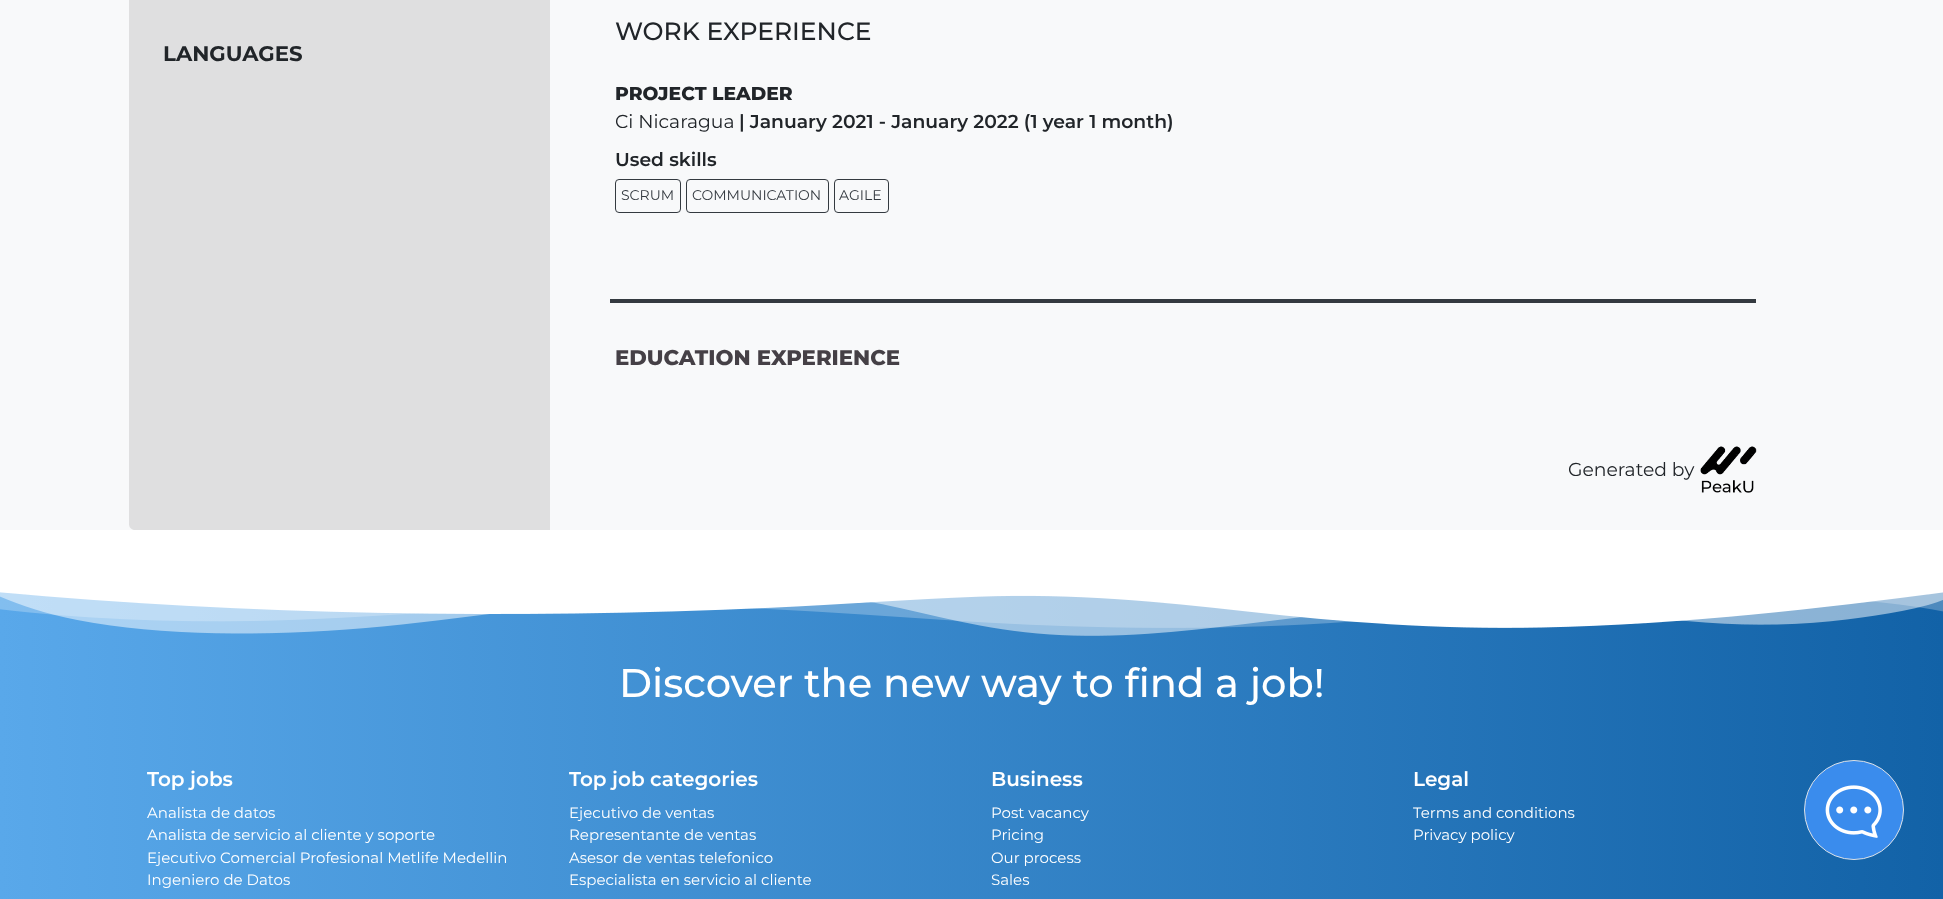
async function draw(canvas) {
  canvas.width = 1943
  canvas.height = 899
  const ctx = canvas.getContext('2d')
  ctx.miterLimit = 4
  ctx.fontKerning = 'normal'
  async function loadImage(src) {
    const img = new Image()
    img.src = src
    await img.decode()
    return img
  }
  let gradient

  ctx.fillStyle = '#fff'
  ctx.fillRect(0, 0, 1943, 899)
  ctx.fillStyle = '#f8f9fa'
  ctx.fillRect(0, 0, 1943, 530)
  ctx.fillStyle = '#dfdfe0'
  ctx.beginPath()
  ctx.moveTo(129, -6)
  ctx.lineTo(550, -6)
  ctx.lineTo(550, 530)
  ctx.lineTo(135, 530)
  ctx.bezierCurveTo(131.5, 530, 129, 527.5, 129, 524)
  ctx.closePath()
  ctx.fill()
  ctx.font = 'bold 21.25px Montserrat'
  ctx.fillStyle = '#212529'
  ctx.fillText('LANGUAGES', 163, 61)
  ctx.fillStyle = '#343a40'
  ctx.fillRect(610, 299, 1146, 4)
  ctx.font = '500 25px Montserrat'
  ctx.fillStyle = '#212529'
  ctx.fillText('WORK EXPERIENCE', 615, 40)
  ctx.font = '800 18.75px Montserrat'
  ctx.fillText('PROJECT LEADER', 615, 100)
  ctx.font = '18.75px Montserrat'
  ctx.fillText('Ci Nicaragua', 615, 128)
  ctx.font = '600 18.75px Montserrat'
  ctx.fillText('| January 2021 - January 2022 (1 year 1 month)', 739, 128)
  ctx.fillText('Used skills', 615, 166)
  ctx.beginPath()
  ctx.roundRect(615.5, 179.5, 65, 33, 3.5)
  ctx.strokeStyle = '#343a40'
  ctx.stroke()
  ctx.font = '14px Montserrat'
  ctx.fillStyle = '#343a40'
  ctx.fillText('SCRUM', 621, 200)
  ctx.beginPath()
  ctx.roundRect(686.5, 179.5, 142, 33, 3.5)
  ctx.stroke()
  ctx.fillText('COMMUNICATION', 692, 200)
  ctx.beginPath()
  ctx.roundRect(834.5, 179.5, 54, 33, 3.5)
  ctx.stroke()
  ctx.fillText('AGILE', 839, 200)
  ctx.font = '800 21.25px Montserrat'
  ctx.fillStyle = '#454046'
  ctx.fillText('EDUCATION EXPERIENCE', 615, 365)
  ctx.font = '18.75px Montserrat'
  ctx.fillStyle = '#212529'
  ctx.fillText('Generated by', 1568, 476)
  ctx.drawImage(await loadImage('image0.png'), 1700, 446, 57, 47)
  gradient = ctx.createLinearGradient(0, 829, 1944, 829)
  gradient.addColorStop(0, '#59a8ea')
  gradient.addColorStop(1, '#1262a7')
  ctx.fillStyle = gradient
  ctx.fillRect(0, 592, 1943, 307)
  ctx.drawImage(await loadImage('image1.png'), 0, 590, 1943, 46)
  ctx.font = '500 40px Montserrat'
  ctx.fillStyle = '#fff'
  ctx.fillText('Discover the new way to find a job!', 619, 697)
  ctx.font = '600 20px Montserrat'
  ctx.fillText('Top jobs', 147, 786)
  ctx.font = '15px Montserrat'
  ctx.fillText('Analista de datos', 147, 818)
  ctx.fillText('Analista de servicio al cliente y soporte', 147, 840)
  ctx.fillText('Ejecutivo Comercial Profesional Metlife Medellin', 147, 863)
  ctx.fillText('Ingeniero de Datos', 147, 885)
  ctx.font = '600 20px Montserrat'
  ctx.fillText('Top job categories', 569, 786)
  ctx.font = '15px Montserrat'
  ctx.fillText('Ejecutivo de ventas', 569, 818)
  ctx.fillText('Representante de ventas', 569, 840)
  ctx.fillText('Asesor de ventas telefonico', 569, 863)
  ctx.fillText('Especialista en servicio al cliente', 569, 885)
  ctx.font = '600 20px Montserrat'
  ctx.fillText('Business', 991, 786)
  ctx.font = '15px Montserrat'
  ctx.fillText('Post vacancy', 991, 818)
  ctx.fillText('Pricing', 991, 840)
  ctx.fillText('Our process', 991, 863)
  ctx.fillText('Sales', 991, 885)
  ctx.font = '600 20px Montserrat'
  ctx.fillText('Legal', 1413, 786)
  ctx.font = '15px Montserrat'
  ctx.fillText('Terms and conditions', 1413, 818)
  ctx.fillText('Privacy policy', 1413, 840)
  ctx.fillStyle = '#3a8ced'
  ctx.beginPath()
  ctx.arc(1854, 810, 49.5, 0, 2 * Math.PI)
  ctx.fill()
  ctx.strokeStyle = '#dee2e6'
  ctx.stroke()
  ctx.drawImage(await loadImage('image2.png'), 1825, 785, 57, 53)
}

draw(document.querySelector('canvas'))
